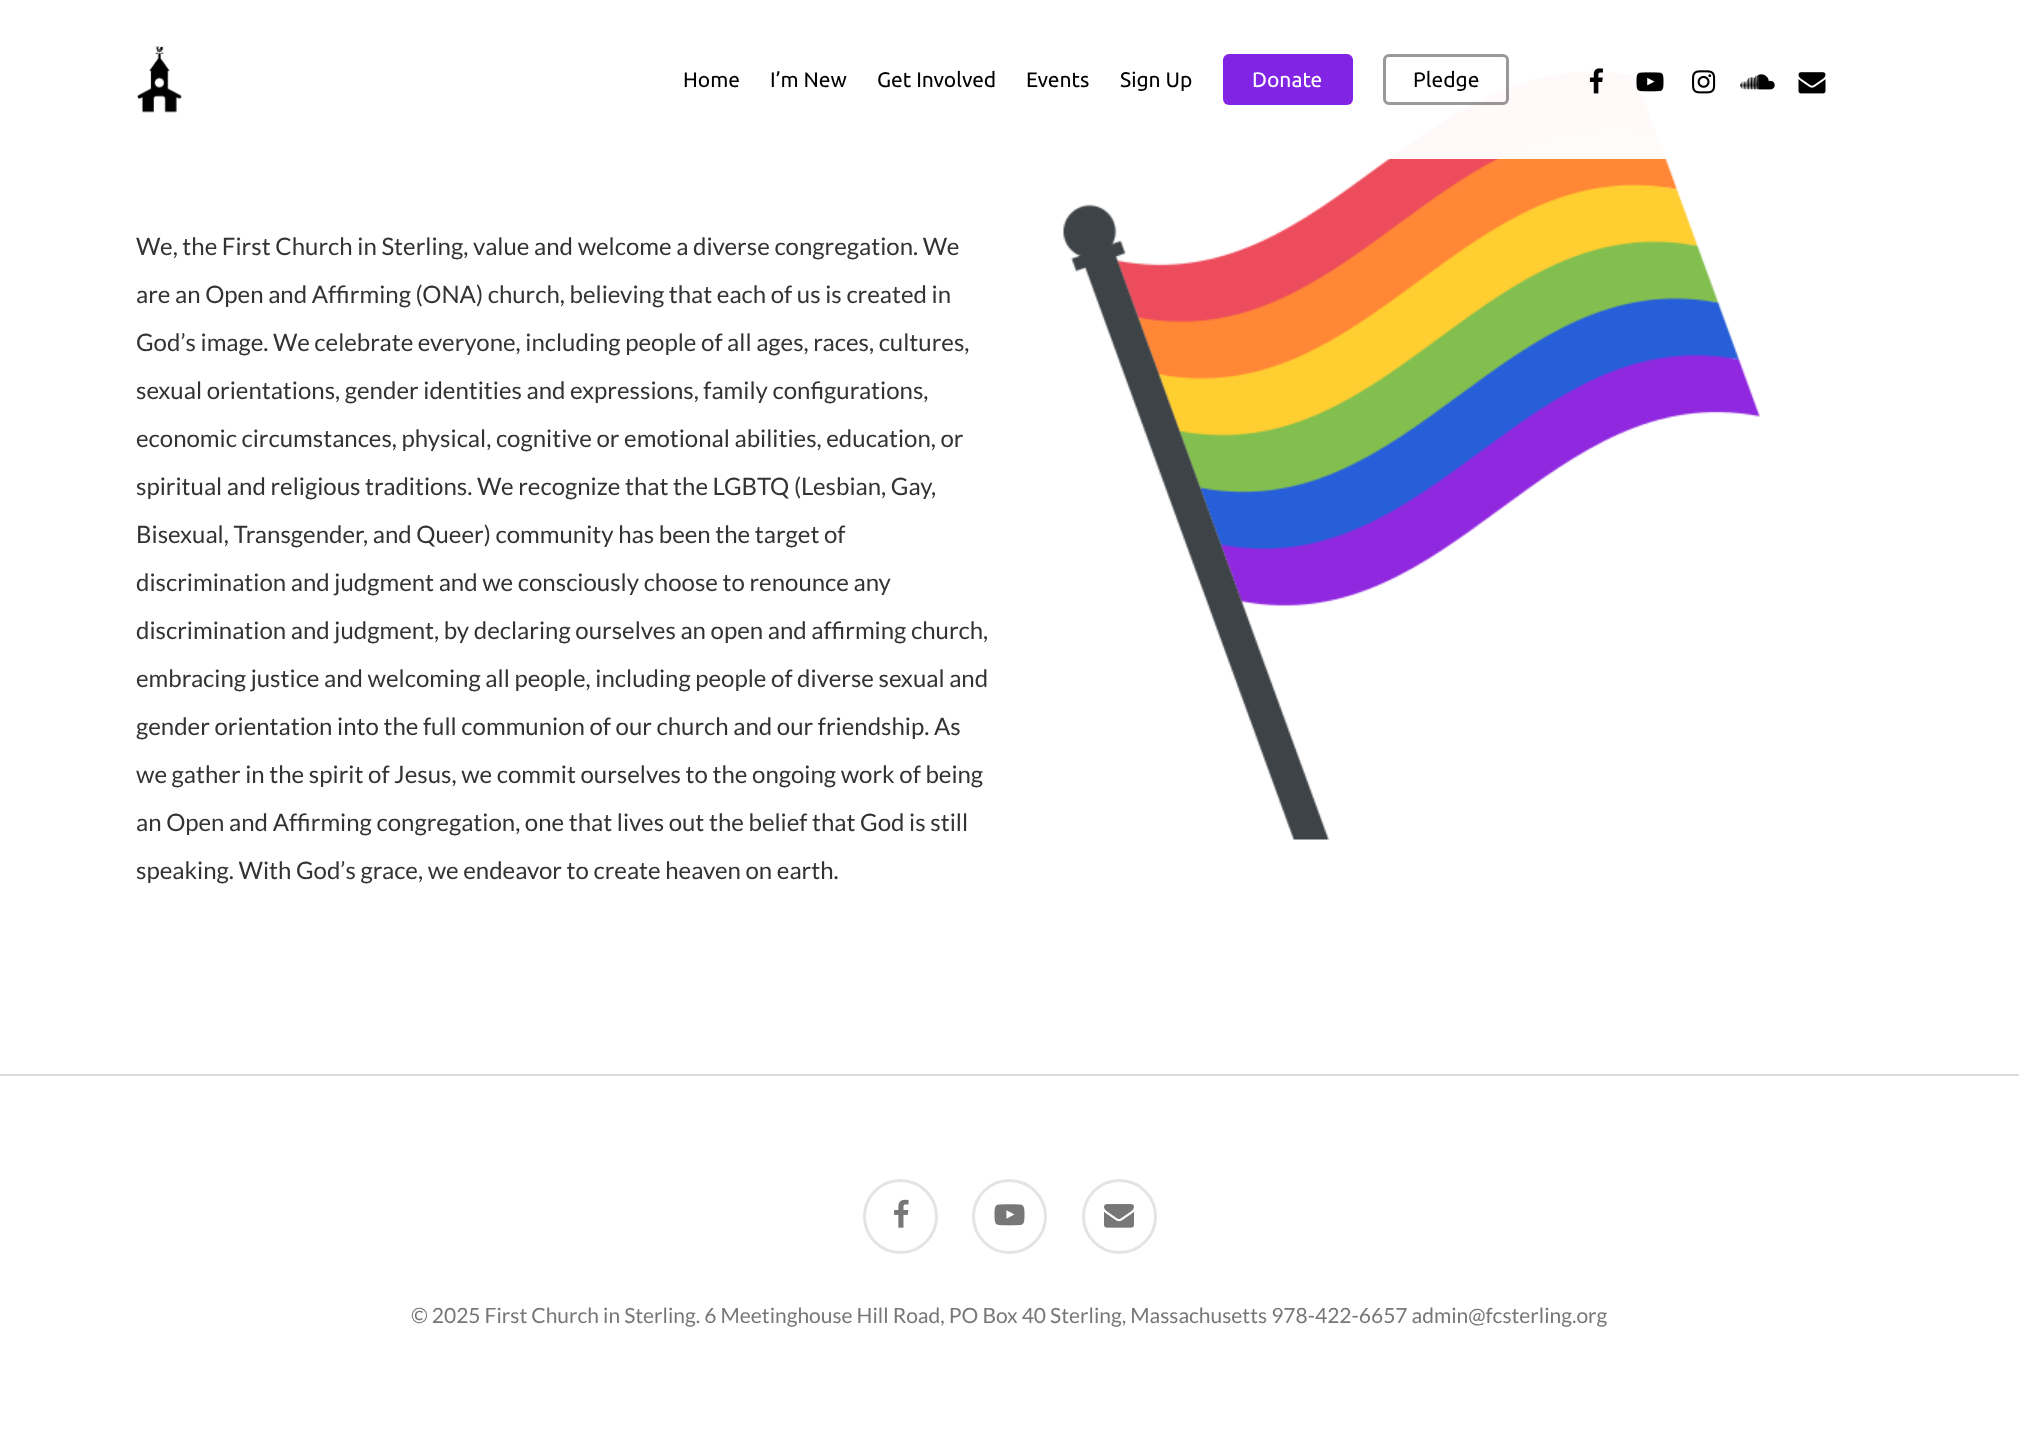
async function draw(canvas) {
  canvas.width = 2019
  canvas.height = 1437
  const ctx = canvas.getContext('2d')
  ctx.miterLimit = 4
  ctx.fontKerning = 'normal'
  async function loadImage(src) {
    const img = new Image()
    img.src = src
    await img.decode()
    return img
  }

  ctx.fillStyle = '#fff'
  ctx.fillRect(0, 0, 2019, 1437)
  ctx.drawImage(await loadImage('image6.png'), 1063, 71, 697, 769)
  ctx.fillStyle = '#fffffff7'
  ctx.fillRect(1387, 71, 280, 88)
  ctx.drawImage(await loadImage('image0.png'), 137, 42, 45, 71)
  ctx.font = '21px Ubuntu'
  ctx.fillStyle = '#000'
  ctx.fillText('Home', 683, 87)
  ctx.fillText('I’m New', 770, 87)
  ctx.fillText('Get Involved', 877, 87)
  ctx.fillText('Events', 1026, 87)
  ctx.fillText('Sign Up', 1120, 87)
  ctx.fillStyle = '#8224e3'
  ctx.beginPath()
  ctx.roundRect(1223, 54, 130, 51, 6)
  ctx.fill()
  ctx.fillStyle = '#fff'
  ctx.fillText('Donate', 1252, 87)
  ctx.beginPath()
  ctx.roundRect(1384.5, 55.5, 123, 48, 4.5)
  ctx.strokeStyle = '#00000066'
  ctx.lineWidth = 3
  ctx.stroke()
  ctx.fillStyle = '#000'
  ctx.fillText('Pledge', 1413, 87)
  ctx.drawImage(await loadImage('image1.png'), 1589, 68, 14, 26)
  ctx.drawImage(await loadImage('image2.png'), 1636, 72, 28, 20)
  ctx.drawImage(await loadImage('image3.png'), 1692, 70, 24, 24)
  ctx.drawImage(await loadImage('image4.png'), 1740, 74, 35, 16)
  ctx.drawImage(await loadImage('image5.png'), 1798, 72, 28, 22)
  ctx.font = '24px Lato'
  ctx.fillStyle = '#333'
  ctx.fillText('We, the First Church in Sterling, value and welcome a diverse congregation. We', 136, 255)
  ctx.fillText('are an Open and Affirming (ONA) church, believing that each of us is created in', 136, 303)
  ctx.fillText('God’s image. We celebrate everyone, including people of all ages, races, cultures,', 136, 351)
  ctx.fillText('sexual orientations, gender identities and expressions, family configurations,', 136, 399)
  ctx.fillText('economic circumstances, physical, cognitive or emotional abilities, education, or', 136, 447)
  ctx.fillText('spiritual and religious traditions. We recognize that the LGBTQ (Lesbian, Gay,', 136, 495)
  ctx.fillText('Bisexual, Transgender, and Queer) community has been the target of', 136, 543)
  ctx.fillText('discrimination and judgment and we consciously choose to renounce any', 136, 591)
  ctx.fillText('discrimination and judgment, by declaring ourselves an open and affirming church,', 136, 639)
  ctx.fillText('embracing justice and welcoming all people, including people of diverse sexual and', 136, 687)
  ctx.fillText('gender orientation into the full communion of our church and our friendship. As', 136, 735)
  ctx.fillText('we gather in the spirit of Jesus, we commit ourselves to the ongoing work of being', 136, 783)
  ctx.fillText('an Open and Affirming congregation, one that lives out the belief that God is still', 136, 831)
  ctx.fillText('speaking. With God’s grace, we endeavor to create heaven on earth.', 136, 879)
  ctx.fillStyle = '#ddd'
  ctx.fillRect(0, 1074, 2019, 2)
  ctx.drawImage(await loadImage('image7.png'), 894, 1199, 15, 29)
  ctx.beginPath()
  ctx.arc(900.5, 1216.5, 36, 0, 2 * Math.PI)
  ctx.strokeStyle = '#e4e4e4'
  ctx.stroke()
  ctx.drawImage(await loadImage('image8.png'), 994, 1204, 31, 22)
  ctx.beginPath()
  ctx.arc(1009.5, 1216.5, 36, 0, 2 * Math.PI)
  ctx.stroke()
  ctx.drawImage(await loadImage('image9.png'), 1104, 1204, 30, 24)
  ctx.beginPath()
  ctx.arc(1119.5, 1216.5, 36, 0, 2 * Math.PI)
  ctx.stroke()
  ctx.font = '21px Lato'
  ctx.fillStyle = '#777'
  ctx.fillText('© 2025 First Church in Sterling. 6 Meetinghouse Hill Road, PO Box 40 Sterling, Massachusetts 978-422-6657 admin@fcsterling.org', 411, 1323)
}

draw(document.querySelector('canvas'))
